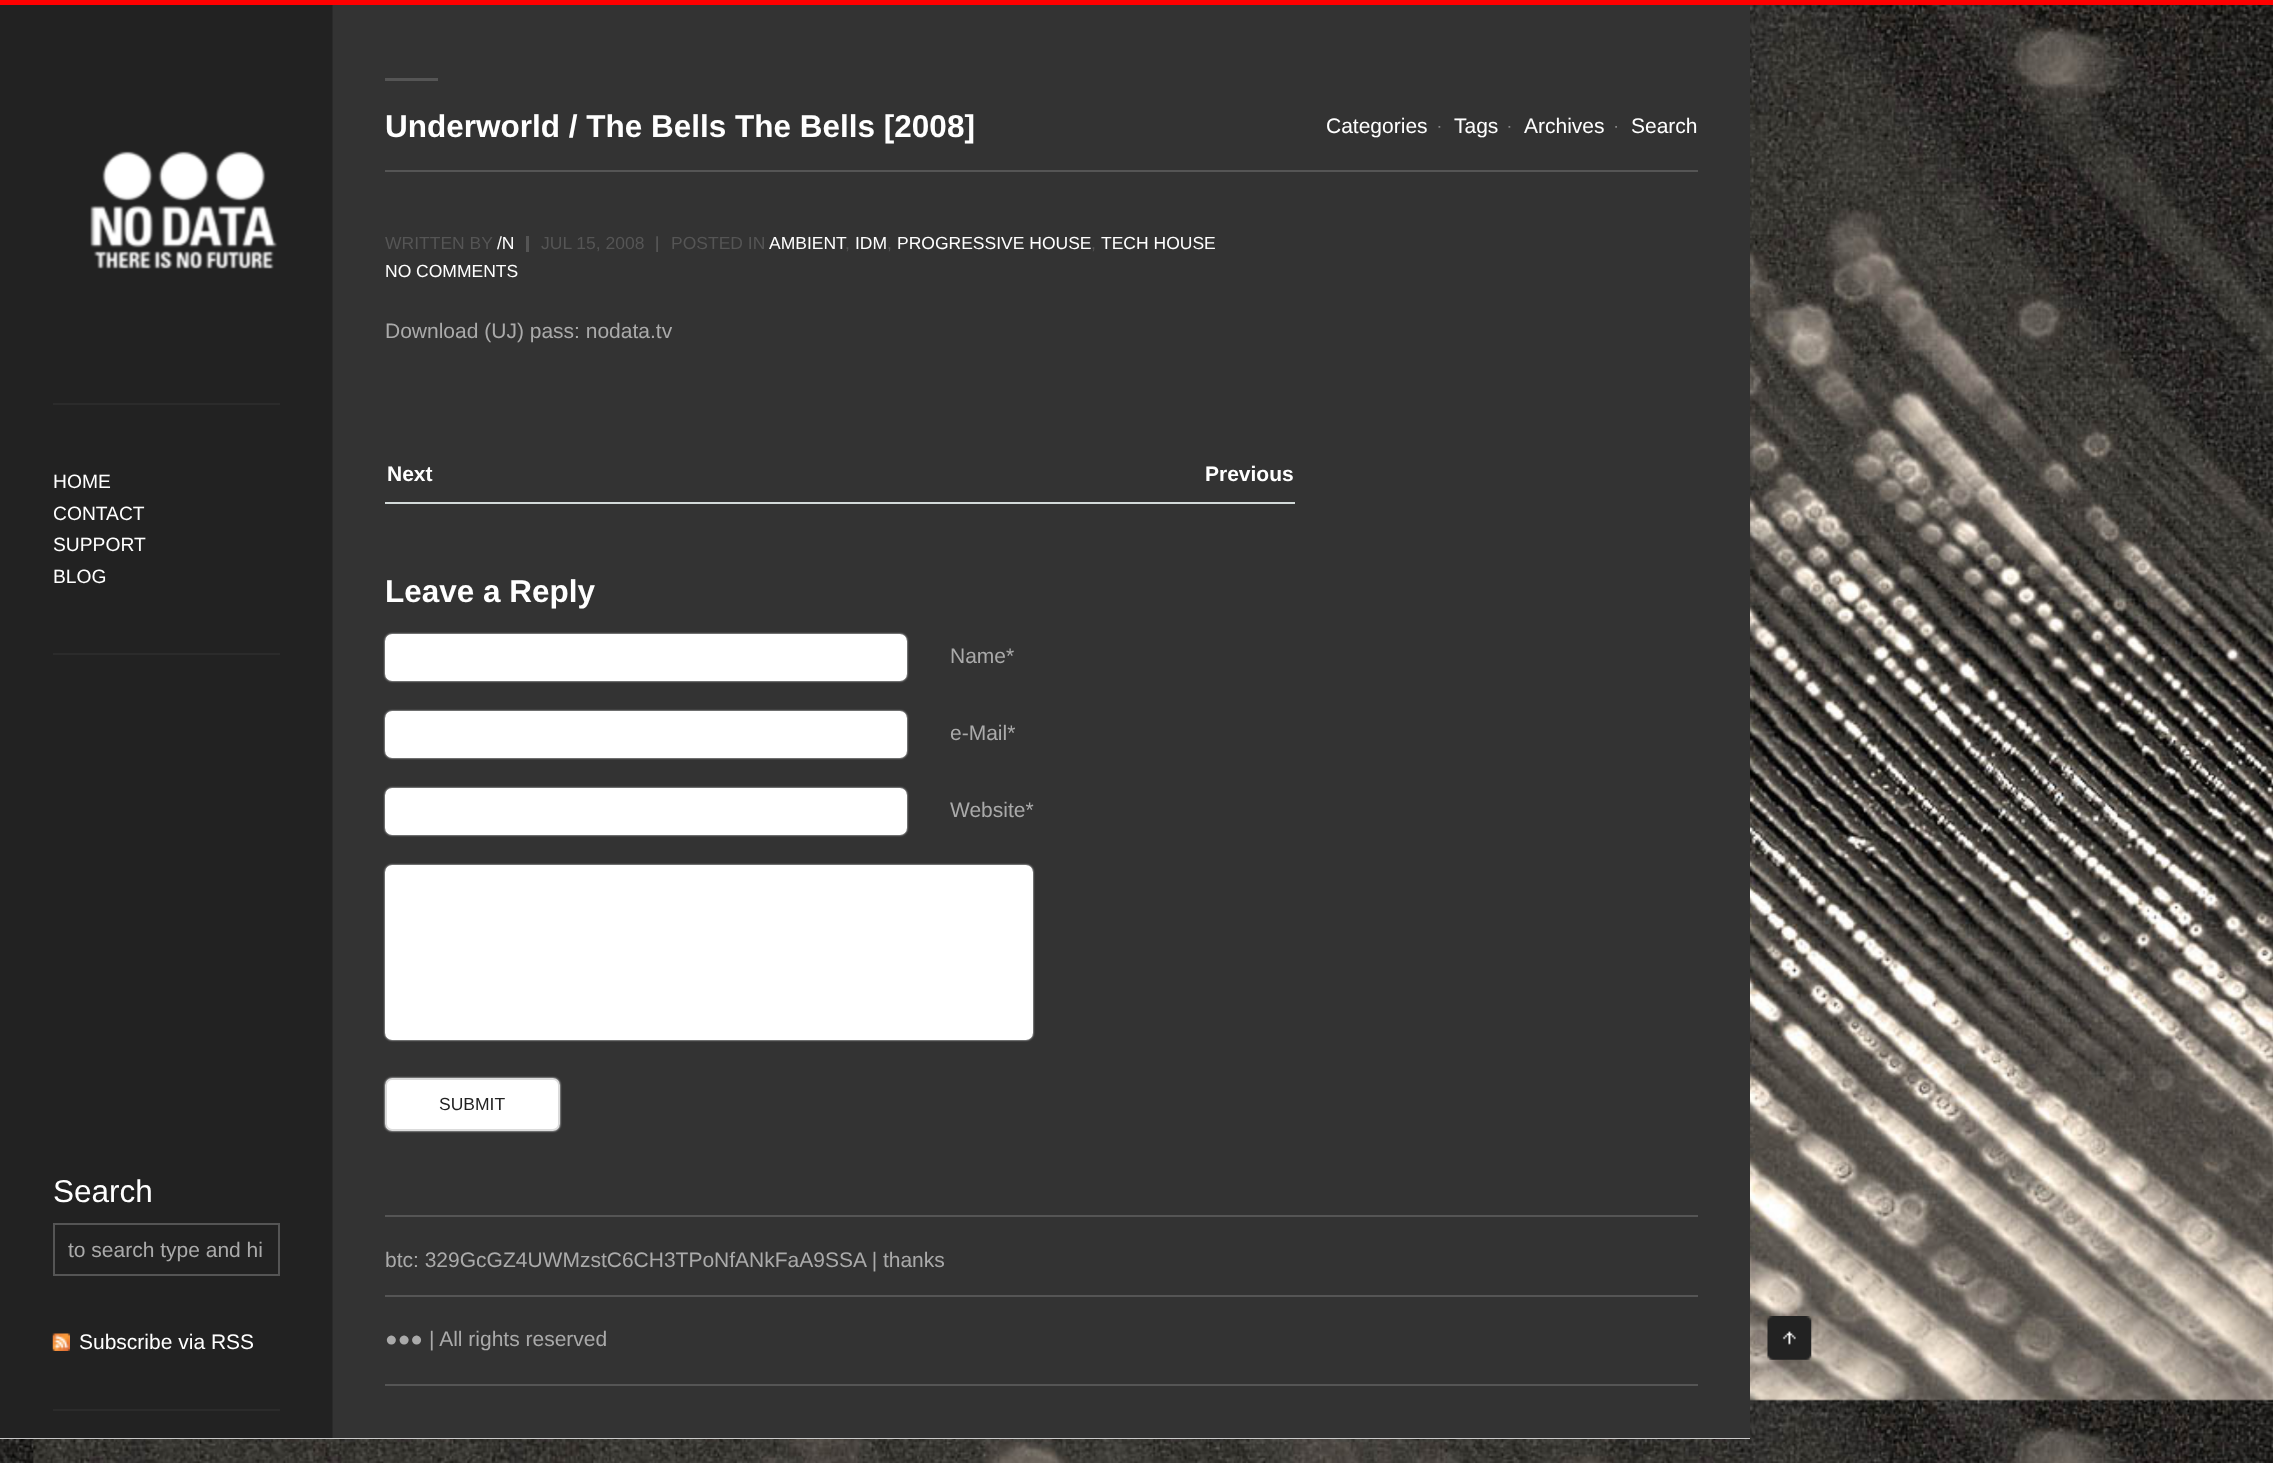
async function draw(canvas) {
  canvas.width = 2273
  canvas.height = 1463
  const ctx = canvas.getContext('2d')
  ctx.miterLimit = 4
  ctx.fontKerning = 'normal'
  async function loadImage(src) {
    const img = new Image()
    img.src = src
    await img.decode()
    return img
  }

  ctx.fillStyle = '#fff'
  ctx.fillRect(0, 0, 2273, 1463)
  ctx.drawImage(await loadImage('image0.png'), 0, 5, 2273, 1458)
  ctx.fillStyle = '#f00'
  ctx.fillRect(0, 0, 2273, 5)
  ctx.fillStyle = '#fff'
  ctx.fillRect(0, 1438, 1750, 1)
  ctx.drawImage(await loadImage('image2.png'), 0, 5, 1750, 1434)
  ctx.drawImage(await loadImage('image1.png'), 90, 151, 188, 118)
  ctx.fillStyle = '#2b2b2b'
  ctx.fillRect(53, 403, 227, 2)
  ctx.fillRect(53, 653, 227, 2)
  ctx.font = '19.25px Arimo'
  ctx.fillStyle = '#fff'
  ctx.fillText('HOME', 53, 488)
  ctx.fillText('CONTACT', 53, 520)
  ctx.fillText('SUPPORT', 53, 551)
  ctx.fillText('BLOG', 53, 583)
  ctx.fillStyle = '#555'
  ctx.fillRect(385, 78, 53, 3)
  ctx.fillRect(385, 170, 1313, 2)
  ctx.font = 'bold 31.5px Arimo'
  ctx.fillStyle = '#fff'
  ctx.fillText('Underworld / The Bells The Bells [2008]', 385, 137)
  ctx.font = '21px Arimo'
  ctx.fillText('Categories', 1326, 133)
  ctx.drawImage(await loadImage('image3.png'), 1438, 126, 3, 2)
  ctx.fillText('Tags', 1454, 133)
  ctx.drawImage(await loadImage('image3.png'), 1508, 126, 3, 2)
  ctx.fillText('Archives', 1524, 133)
  ctx.drawImage(await loadImage('image4.png'), 1615, 126, 2, 2)
  ctx.fillText('Search', 1631, 133)
  ctx.font = '17.5px Arimo'
  ctx.fillStyle = '#555'
  ctx.fillText('WRITTEN BY', 385, 249)
  ctx.fillStyle = '#fff'
  ctx.fillText('/N', 497, 249)
  ctx.fillStyle = '#555'
  ctx.fillRect(526, 236, 3, 16)
  ctx.fillText('JUL 15, 2008', 541, 249)
  ctx.drawImage(await loadImage('image5.png'), 656, 236, 2, 16)
  ctx.fillText('POSTED IN', 671, 249)
  ctx.fillStyle = '#fff'
  ctx.fillText('AMBIENT', 769, 249)
  ctx.fillStyle = '#555'
  ctx.fillText(',', 845, 249)
  ctx.fillStyle = '#fff'
  ctx.fillText('IDM', 855, 249)
  ctx.fillStyle = '#555'
  ctx.fillText(',', 887, 249)
  ctx.fillStyle = '#fff'
  ctx.fillText('PROGRESSIVE HOUSE', 897, 249)
  ctx.fillStyle = '#555'
  ctx.fillText(',', 1091, 249)
  ctx.fillStyle = '#fff'
  ctx.fillText('TECH HOUSE', 1101, 249)
  ctx.fillText('NO COMMENTS', 385, 277)
  ctx.font = '21px Liberation Sans'
  ctx.fillStyle = '#aaa'
  ctx.fillText('Download (UJ) pass: nodata.tv', 385, 338)
  ctx.fillStyle = '#d3dad9'
  ctx.fillRect(385, 502, 910, 2)
  ctx.font = 'bold 21px Arimo'
  ctx.fillStyle = '#fff'
  ctx.fillText('Next', 387, 481)
  ctx.fillText('Previous', 1205, 481)
  ctx.font = 'bold 31.5px Arimo'
  ctx.fillText('Leave a Reply', 385, 602)
  ctx.save()
  ctx.beginPath()
  ctx.moveTo(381, 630)
  ctx.lineTo(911, 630)
  ctx.lineTo(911, 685)
  ctx.lineTo(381, 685)
  ctx.closePath()
  ctx.moveTo(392, 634)
  ctx.lineTo(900, 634)
  ctx.bezierCurveTo(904, 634, 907, 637, 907, 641)
  ctx.lineTo(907, 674)
  ctx.bezierCurveTo(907, 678, 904, 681, 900, 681)
  ctx.lineTo(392, 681)
  ctx.bezierCurveTo(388, 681, 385, 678, 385, 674)
  ctx.lineTo(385, 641)
  ctx.bezierCurveTo(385, 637, 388, 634, 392, 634)
  ctx.closePath()
  ctx.clip('evenodd')
  ctx.fillStyle = '#e5e6e8'
  ctx.filter = 'blur(1px)'
  ctx.beginPath()
  ctx.roundRect(385, 634, 522, 47, 7)
  ctx.fill()
  ctx.filter = 'none'
  ctx.restore()
  ctx.beginPath()
  ctx.roundRect(385, 634, 522, 47, 7)
  ctx.fill()
  ctx.font = '21px Arimo'
  ctx.fillStyle = '#aaa'
  ctx.fillText('Name*', 950, 663)
  ctx.save()
  ctx.beginPath()
  ctx.moveTo(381, 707)
  ctx.lineTo(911, 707)
  ctx.lineTo(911, 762)
  ctx.lineTo(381, 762)
  ctx.closePath()
  ctx.moveTo(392, 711)
  ctx.lineTo(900, 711)
  ctx.bezierCurveTo(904, 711, 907, 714, 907, 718)
  ctx.lineTo(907, 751)
  ctx.bezierCurveTo(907, 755, 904, 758, 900, 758)
  ctx.lineTo(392, 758)
  ctx.bezierCurveTo(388, 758, 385, 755, 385, 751)
  ctx.lineTo(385, 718)
  ctx.bezierCurveTo(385, 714, 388, 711, 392, 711)
  ctx.closePath()
  ctx.clip('evenodd')
  ctx.fillStyle = '#e5e6e8'
  ctx.filter = 'blur(1px)'
  ctx.beginPath()
  ctx.roundRect(385, 711, 522, 47, 7)
  ctx.fill()
  ctx.filter = 'none'
  ctx.restore()
  ctx.fillStyle = '#fff'
  ctx.beginPath()
  ctx.roundRect(385, 711, 522, 47, 7)
  ctx.fill()
  ctx.fillStyle = '#aaa'
  ctx.fillText('e-Mail*', 950, 740)
  ctx.save()
  ctx.beginPath()
  ctx.moveTo(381, 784)
  ctx.lineTo(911, 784)
  ctx.lineTo(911, 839)
  ctx.lineTo(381, 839)
  ctx.closePath()
  ctx.moveTo(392, 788)
  ctx.lineTo(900, 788)
  ctx.bezierCurveTo(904, 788, 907, 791, 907, 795)
  ctx.lineTo(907, 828)
  ctx.bezierCurveTo(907, 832, 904, 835, 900, 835)
  ctx.lineTo(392, 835)
  ctx.bezierCurveTo(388, 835, 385, 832, 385, 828)
  ctx.lineTo(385, 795)
  ctx.bezierCurveTo(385, 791, 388, 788, 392, 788)
  ctx.closePath()
  ctx.clip('evenodd')
  ctx.fillStyle = '#e5e6e8'
  ctx.filter = 'blur(1px)'
  ctx.beginPath()
  ctx.roundRect(385, 788, 522, 47, 7)
  ctx.fill()
  ctx.filter = 'none'
  ctx.restore()
  ctx.fillStyle = '#fff'
  ctx.beginPath()
  ctx.roundRect(385, 788, 522, 47, 7)
  ctx.fill()
  ctx.fillStyle = '#aaa'
  ctx.fillText('Website*', 950, 817)
  ctx.save()
  ctx.beginPath()
  ctx.moveTo(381, 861)
  ctx.lineTo(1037, 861)
  ctx.lineTo(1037, 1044)
  ctx.lineTo(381, 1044)
  ctx.closePath()
  ctx.moveTo(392, 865)
  ctx.lineTo(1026, 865)
  ctx.bezierCurveTo(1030, 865, 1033, 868, 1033, 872)
  ctx.lineTo(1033, 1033)
  ctx.bezierCurveTo(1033, 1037, 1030, 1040, 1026, 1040)
  ctx.lineTo(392, 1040)
  ctx.bezierCurveTo(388, 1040, 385, 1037, 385, 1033)
  ctx.lineTo(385, 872)
  ctx.bezierCurveTo(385, 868, 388, 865, 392, 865)
  ctx.closePath()
  ctx.clip('evenodd')
  ctx.fillStyle = '#e5e6e8'
  ctx.filter = 'blur(1px)'
  ctx.beginPath()
  ctx.roundRect(385, 865, 648, 175, 7)
  ctx.fill()
  ctx.filter = 'none'
  ctx.restore()
  ctx.fillStyle = '#fff'
  ctx.beginPath()
  ctx.roundRect(385, 865, 648, 175, 7)
  ctx.fill()
  ctx.save()
  ctx.beginPath()
  ctx.moveTo(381, 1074)
  ctx.lineTo(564, 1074)
  ctx.lineTo(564, 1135)
  ctx.lineTo(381, 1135)
  ctx.closePath()
  ctx.moveTo(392, 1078)
  ctx.lineTo(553, 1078)
  ctx.bezierCurveTo(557, 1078, 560, 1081, 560, 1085)
  ctx.lineTo(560, 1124)
  ctx.bezierCurveTo(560, 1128, 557, 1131, 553, 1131)
  ctx.lineTo(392, 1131)
  ctx.bezierCurveTo(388, 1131, 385, 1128, 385, 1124)
  ctx.lineTo(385, 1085)
  ctx.bezierCurveTo(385, 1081, 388, 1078, 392, 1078)
  ctx.closePath()
  ctx.clip('evenodd')
  ctx.fillStyle = '#e5e6e8'
  ctx.filter = 'blur(1px)'
  ctx.beginPath()
  ctx.roundRect(385, 1078, 175, 53, 7)
  ctx.fill()
  ctx.filter = 'none'
  ctx.restore()
  ctx.beginPath()
  ctx.roundRect(386, 1079, 173, 51, 6)
  ctx.fill()
  ctx.strokeStyle = '#dbdbdb'
  ctx.lineWidth = 2
  ctx.stroke()
  ctx.font = '17.5px Arimo'
  ctx.fillStyle = '#222'
  ctx.fillText('SUBMIT', 439, 1110)
  ctx.fillStyle = '#555'
  ctx.fillRect(385, 1215, 1313, 2)
  ctx.font = '21px Arimo'
  ctx.fillStyle = '#aaa'
  ctx.fillText('btc: 329GcGZ4UWMzstC6CH3TPoNfANkFaA9SSA | thanks', 385, 1267)
  ctx.fillStyle = '#555'
  ctx.fillRect(385, 1295, 1313, 2)
  ctx.fillRect(385, 1384, 1313, 2)
  ctx.font = '21px Liberation Sans'
  ctx.fillStyle = '#aaa'
  ctx.fillText('●●●', 385, 1346)
  ctx.font = '21px Arimo'
  ctx.fillText('| All rights reserved', 429, 1346)
  ctx.drawImage(await loadImage('image6.png'), 1767, 1316, 45, 44)
  ctx.fillStyle = '#2b2b2b'
  ctx.fillRect(53, 1409, 227, 2)
  ctx.font = '31.5px Arimo'
  ctx.fillStyle = '#fff'
  ctx.fillText('Search', 53, 1202)
  ctx.strokeStyle = '#555'
  ctx.strokeRect(54, 1224, 225, 51)
  ctx.font = '21px Arimo'
  ctx.fillStyle = '#aaa'
  ctx.fillText('to search type and hi', 68, 1257)
  ctx.drawImage(await loadImage('image7.png'), 52, 1333, 18, 18)
  ctx.fillStyle = '#fff'
  ctx.fillText('Subscribe via RSS', 79, 1349)
}

draw(document.querySelector('canvas'))
